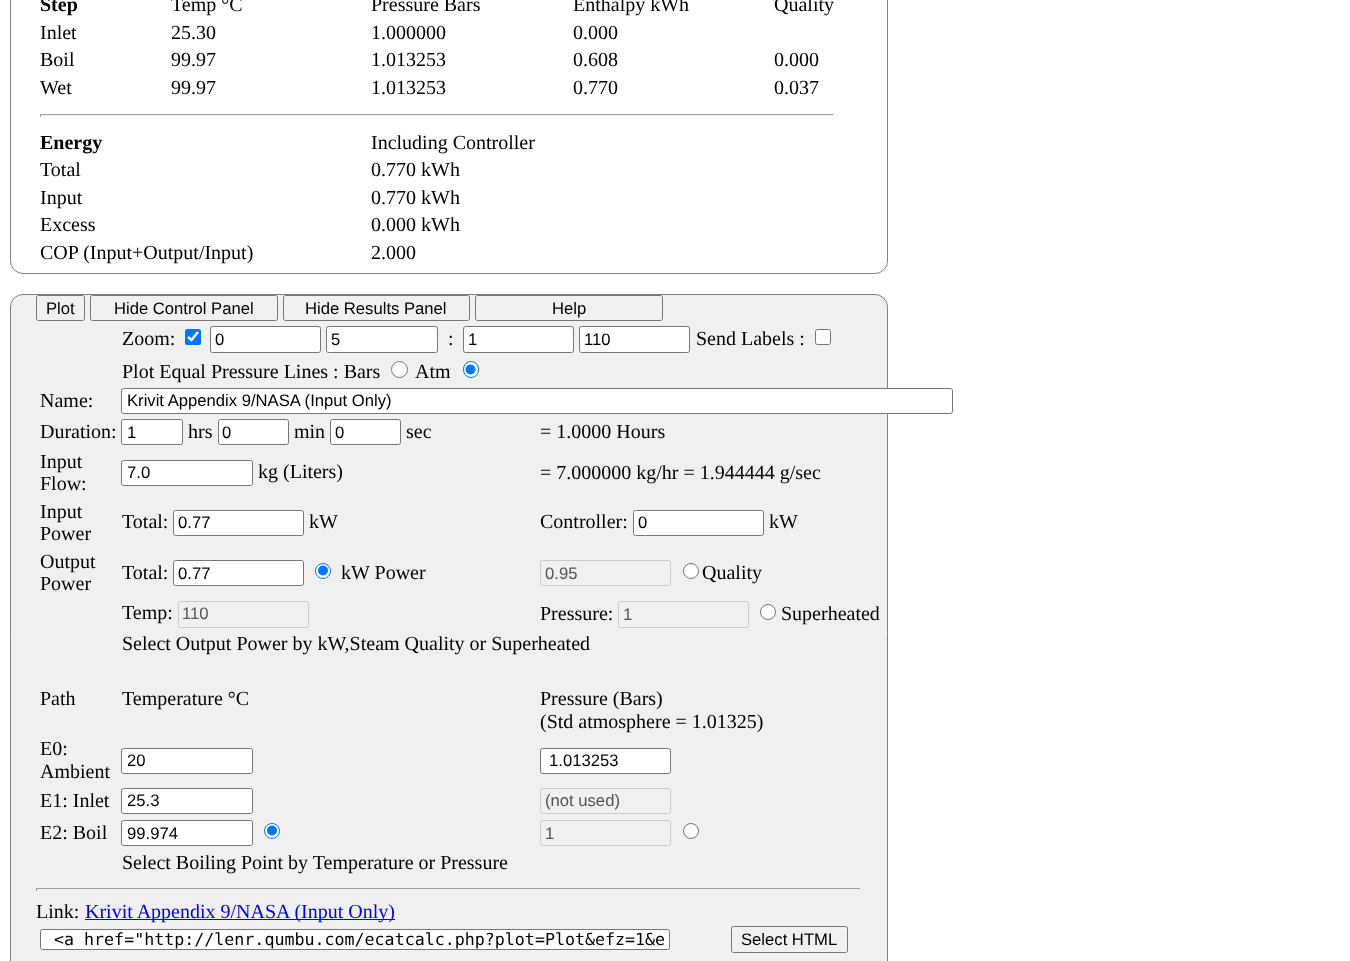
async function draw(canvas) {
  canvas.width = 1350
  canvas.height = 961
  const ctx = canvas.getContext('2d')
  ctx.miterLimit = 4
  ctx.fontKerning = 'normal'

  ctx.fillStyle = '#fff'
  ctx.fillRect(0, 0, 1350, 961)
  ctx.beginPath()
  ctx.roundRect(10.5, -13.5, 877, 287, 12.5)
  ctx.strokeStyle = '#808080'
  ctx.stroke()
  ctx.font = 'bold 20px Liberation Serif'
  ctx.fillStyle = '#000'
  ctx.fillText('Step', 40, 11)
  ctx.font = '20px Liberation Serif'
  ctx.fillText('Temp °C', 171, 11)
  ctx.fillText('Pressure Bars', 371, 11)
  ctx.fillText('Enthalpy kWh', 573, 11)
  ctx.fillText('Quality', 774, 11)
  ctx.fillText('Inlet', 40, 39)
  ctx.fillText('25.30', 171, 39)
  ctx.fillText('1.000000', 371, 39)
  ctx.fillText('0.000', 573, 39)
  ctx.fillText('Boil', 40, 66)
  ctx.fillText('99.97', 171, 66)
  ctx.fillText('1.013253', 371, 66)
  ctx.fillText('0.608', 573, 66)
  ctx.fillText('0.000', 774, 66)
  ctx.fillText('Wet', 40, 94)
  ctx.fillText('99.97', 171, 94)
  ctx.fillText('1.013253', 371, 94)
  ctx.fillText('0.770', 573, 94)
  ctx.fillText('0.037', 774, 94)
  ctx.fillStyle = '#9f9f9f'
  ctx.fillRect(40, 114, 794, 1)
  ctx.fillStyle = '#eee'
  ctx.fillRect(833, 114, 1, 3)
  ctx.fillRect(40, 115, 794, 1)
  ctx.fillStyle = '#9f9f9f'
  ctx.fillRect(40, 114, 1, 3)
  ctx.font = 'bold 20px Liberation Serif'
  ctx.fillStyle = '#000'
  ctx.fillText('Energy', 40, 149)
  ctx.font = '20px Liberation Serif'
  ctx.fillText('Including Controller', 371, 149)
  ctx.fillText('Total', 40, 176)
  ctx.fillText('0.770 kWh', 371, 176)
  ctx.fillText('Input', 40, 204)
  ctx.fillText('0.770 kWh', 371, 204)
  ctx.fillText('Excess', 40, 231)
  ctx.fillText('0.000 kWh', 371, 231)
  ctx.fillText('COP (Input+Output/Input)', 40, 259)
  ctx.fillText('2.000', 371, 259)
  ctx.fillStyle = '#f0f0f0'
  ctx.beginPath()
  ctx.roundRect(10.5, 294.5, 877, 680, 12.5)
  ctx.fill()
  ctx.stroke()
  ctx.beginPath()
  ctx.roundRect(36.5, 295.5, 48, 25, 2)
  ctx.strokeStyle = '#767676'
  ctx.stroke()
  ctx.font = '16.65px Liberation Sans'
  ctx.fillStyle = '#000'
  ctx.fillText('Plot', 46, 314)
  ctx.beginPath()
  ctx.roundRect(90.5, 295.5, 187, 25, 2)
  ctx.stroke()
  ctx.fillText('Hide Control Panel', 114, 314)
  ctx.beginPath()
  ctx.roundRect(283.5, 295.5, 186, 25, 2)
  ctx.stroke()
  ctx.fillText('Hide Results Panel', 305, 314)
  ctx.beginPath()
  ctx.roundRect(475.5, 295.5, 187, 25, 2)
  ctx.stroke()
  ctx.fillText('Help', 552, 314)
  ctx.font = '20px Liberation Serif'
  ctx.fillText('Zoom:', 122, 345)
  ctx.fillStyle = '#0075ff'
  ctx.beginPath()
  ctx.roundRect(185, 329, 16, 16, 2.5)
  ctx.fill()
  ctx.beginPath()
  ctx.moveTo(188, 337)
  ctx.lineTo(191.5, 340)
  ctx.lineTo(198, 332)
  ctx.strokeStyle = '#fff'
  ctx.lineWidth = 2.6
  ctx.stroke()
  ctx.fillStyle = '#fff'
  ctx.beginPath()
  ctx.roundRect(210.5, 326.5, 110, 26, 2)
  ctx.fill()
  ctx.strokeStyle = '#767676'
  ctx.lineWidth = 1
  ctx.stroke()
  ctx.font = '16.65px Liberation Sans'
  ctx.fillStyle = '#000'
  ctx.fillText('0', 215, 345)
  ctx.fillStyle = '#fff'
  ctx.beginPath()
  ctx.roundRect(326.5, 326.5, 111, 26, 2)
  ctx.fill()
  ctx.stroke()
  ctx.fillStyle = '#000'
  ctx.fillText('5', 331, 345)
  ctx.font = '20px Liberation Serif'
  ctx.fillText(':', 448, 345)
  ctx.fillStyle = '#fff'
  ctx.beginPath()
  ctx.roundRect(463.5, 326.5, 110, 26, 2)
  ctx.fill()
  ctx.stroke()
  ctx.font = '16.65px Liberation Sans'
  ctx.fillStyle = '#000'
  ctx.fillText('1', 468, 345)
  ctx.fillStyle = '#fff'
  ctx.beginPath()
  ctx.roundRect(579.5, 326.5, 110, 26, 2)
  ctx.fill()
  ctx.stroke()
  ctx.fillStyle = '#000'
  ctx.fillText('110', 584, 345)
  ctx.font = '20px Liberation Serif'
  ctx.fillText('Send Labels :', 696, 345)
  ctx.fillStyle = '#fff'
  ctx.beginPath()
  ctx.roundRect(815.5, 329.5, 15, 15, 2)
  ctx.fill()
  ctx.stroke()
  ctx.fillStyle = '#000'
  ctx.fillText('Plot Equal Pressure Lines : Bars', 122, 378)
  ctx.fillStyle = '#fff'
  ctx.beginPath()
  ctx.arc(399.5, 369.5, 8, 0, 2 * Math.PI)
  ctx.fill()
  ctx.stroke()
  ctx.fillStyle = '#000'
  ctx.fillText('Atm', 415, 378)
  ctx.fillStyle = '#fff'
  ctx.beginPath()
  ctx.roundRect(463.5, 361.5, 15, 16, 7.5)
  ctx.fill()
  ctx.strokeStyle = '#0075ff'
  ctx.stroke()
  ctx.fillStyle = '#0075ff'
  ctx.beginPath()
  ctx.arc(470.5, 369.5, 5, 0, 2 * Math.PI)
  ctx.fill()
  ctx.fillStyle = '#000'
  ctx.fillText('Name:', 40, 407)
  ctx.fillStyle = '#fff'
  ctx.beginPath()
  ctx.roundRect(121.5, 388.5, 831, 25, 2)
  ctx.fill()
  ctx.strokeStyle = '#767676'
  ctx.stroke()
  ctx.font = '16.65px Liberation Sans'
  ctx.fillStyle = '#000'
  ctx.fillText('Krivit Appendix 9/NASA (Input Only)', 127, 406)
  ctx.font = '20px Liberation Serif'
  ctx.fillText('Duration:', 40, 438)
  ctx.fillStyle = '#fff'
  ctx.beginPath()
  ctx.roundRect(121.5, 419.5, 61, 25, 2)
  ctx.fill()
  ctx.stroke()
  ctx.font = '16.65px Liberation Sans'
  ctx.fillStyle = '#000'
  ctx.fillText('1', 127, 438)
  ctx.font = '20px Liberation Serif'
  ctx.fillText('hrs', 188, 438)
  ctx.fillStyle = '#fff'
  ctx.beginPath()
  ctx.roundRect(218.5, 419.5, 70, 25, 2)
  ctx.fill()
  ctx.stroke()
  ctx.font = '16.65px Liberation Sans'
  ctx.fillStyle = '#000'
  ctx.fillText('0', 222, 438)
  ctx.font = '20px Liberation Serif'
  ctx.fillText('min', 294, 438)
  ctx.fillStyle = '#fff'
  ctx.beginPath()
  ctx.roundRect(330.5, 419.5, 70, 25, 2)
  ctx.fill()
  ctx.stroke()
  ctx.font = '16.65px Liberation Sans'
  ctx.fillStyle = '#000'
  ctx.fillText('0', 335, 438)
  ctx.font = '20px Liberation Serif'
  ctx.fillText('sec', 406, 438)
  ctx.fillText('= 1.0000 Hours', 540, 438)
  ctx.fillText('Input', 40, 468)
  ctx.fillText('Flow:', 40, 490)
  ctx.fillStyle = '#fff'
  ctx.beginPath()
  ctx.roundRect(121.5, 460.5, 131, 25, 2)
  ctx.fill()
  ctx.stroke()
  ctx.font = '16.65px Liberation Sans'
  ctx.fillStyle = '#000'
  ctx.fillText('7.0', 127, 478)
  ctx.font = '20px Liberation Serif'
  ctx.fillText('kg (Liters)', 258, 478)
  ctx.fillText('= 7.000000 kg/hr = 1.944444 g/sec', 540, 479)
  ctx.fillText('Input', 40, 518)
  ctx.fillText('Power', 40, 540)
  ctx.fillText('Total:', 122, 528)
  ctx.fillStyle = '#fff'
  ctx.beginPath()
  ctx.roundRect(173.5, 510.5, 130, 25, 2)
  ctx.fill()
  ctx.stroke()
  ctx.font = '16.65px Liberation Sans'
  ctx.fillStyle = '#000'
  ctx.fillText('0.77', 178, 528)
  ctx.font = '20px Liberation Serif'
  ctx.fillText('kW', 309, 528)
  ctx.fillText('Controller:', 540, 528)
  ctx.fillStyle = '#fff'
  ctx.beginPath()
  ctx.roundRect(633.5, 510.5, 130, 25, 2)
  ctx.fill()
  ctx.stroke()
  ctx.font = '16.65px Liberation Sans'
  ctx.fillStyle = '#000'
  ctx.fillText('0', 638, 528)
  ctx.font = '20px Liberation Serif'
  ctx.fillText('kW', 769, 528)
  ctx.fillText('Output', 40, 568)
  ctx.fillText('Power', 40, 590)
  ctx.fillText('Total:', 122, 579)
  ctx.fillStyle = '#fff'
  ctx.beginPath()
  ctx.roundRect(173.5, 560.5, 130, 25, 2)
  ctx.fill()
  ctx.stroke()
  ctx.font = '16.65px Liberation Sans'
  ctx.fillStyle = '#000'
  ctx.fillText('0.77', 178, 579)
  ctx.fillStyle = '#fff'
  ctx.beginPath()
  ctx.arc(323, 571, 7.5, 0, 2 * Math.PI)
  ctx.fill()
  ctx.strokeStyle = '#0075ff'
  ctx.stroke()
  ctx.fillStyle = '#0075ff'
  ctx.beginPath()
  ctx.arc(323, 570.5, 5, 0, 2 * Math.PI)
  ctx.fill()
  ctx.font = '20px Liberation Serif'
  ctx.fillStyle = '#000'
  ctx.fillText('kW Power', 341, 579)
  ctx.beginPath()
  ctx.roundRect(540.5, 560.5, 130, 25, 2)
  ctx.strokeStyle = '#cbcbcb'
  ctx.stroke()
  ctx.font = '16.65px Liberation Sans'
  ctx.fillStyle = '#545454'
  ctx.fillText('0.95', 545, 579)
  ctx.fillStyle = '#fff'
  ctx.beginPath()
  ctx.arc(691, 571, 7.5, 0, 2 * Math.PI)
  ctx.fill()
  ctx.strokeStyle = '#767676'
  ctx.stroke()
  ctx.font = '20px Liberation Serif'
  ctx.fillStyle = '#000'
  ctx.fillText('Quality', 702, 579)
  ctx.fillText('Temp:', 122, 619)
  ctx.beginPath()
  ctx.roundRect(178.5, 601.5, 130, 26, 2)
  ctx.strokeStyle = '#cbcbcb'
  ctx.stroke()
  ctx.font = '16.65px Liberation Sans'
  ctx.fillStyle = '#545454'
  ctx.fillText('110', 182, 619)
  ctx.font = '20px Liberation Serif'
  ctx.fillStyle = '#000'
  ctx.fillText('Pressure:', 540, 620)
  ctx.beginPath()
  ctx.roundRect(618.5, 601.5, 130, 26, 2)
  ctx.stroke()
  ctx.font = '16.65px Liberation Sans'
  ctx.fillStyle = '#545454'
  ctx.fillText('1', 623, 620)
  ctx.fillStyle = '#fff'
  ctx.beginPath()
  ctx.arc(768, 612, 7.5, 0, 2 * Math.PI)
  ctx.fill()
  ctx.strokeStyle = '#767676'
  ctx.stroke()
  ctx.font = '20px Liberation Serif'
  ctx.fillStyle = '#000'
  ctx.fillText('Superheated', 781, 620)
  ctx.fillText('Select Output Power by kW,Steam Quality or Superheated', 122, 650)
  ctx.fillText('Path', 40, 705)
  ctx.fillText('Temperature °C', 122, 705)
  ctx.fillText('Pressure (Bars)', 540, 705)
  ctx.fillText('(Std atmosphere = 1.01325)', 540, 728)
  ctx.fillText('E0:', 40, 755)
  ctx.fillText('Ambient', 40, 778)
  ctx.fillStyle = '#fff'
  ctx.beginPath()
  ctx.roundRect(121.5, 748.5, 131, 25, 2)
  ctx.fill()
  ctx.stroke()
  ctx.font = '16.65px Liberation Sans'
  ctx.fillStyle = '#000'
  ctx.fillText('20', 127, 766)
  ctx.fillStyle = '#fff'
  ctx.beginPath()
  ctx.roundRect(540.5, 748.5, 130, 25, 2)
  ctx.fill()
  ctx.stroke()
  ctx.fillStyle = '#000'
  ctx.fillText('1.013253', 549, 766)
  ctx.font = '20px Liberation Serif'
  ctx.fillText('E1: Inlet', 40, 807)
  ctx.fillStyle = '#fff'
  ctx.beginPath()
  ctx.roundRect(121.5, 788.5, 131, 25, 2)
  ctx.fill()
  ctx.stroke()
  ctx.font = '16.65px Liberation Sans'
  ctx.fillStyle = '#000'
  ctx.fillText('25.3', 127, 806)
  ctx.beginPath()
  ctx.roundRect(540.5, 788.5, 130, 25, 2)
  ctx.strokeStyle = '#cbcbcb'
  ctx.stroke()
  ctx.fillStyle = '#545454'
  ctx.fillText('(not used)', 545, 806)
  ctx.font = '20px Liberation Serif'
  ctx.fillStyle = '#000'
  ctx.fillText('E2: Boil', 40, 839)
  ctx.fillStyle = '#fff'
  ctx.beginPath()
  ctx.roundRect(121.5, 820.5, 131, 25, 2)
  ctx.fill()
  ctx.strokeStyle = '#767676'
  ctx.stroke()
  ctx.font = '16.65px Liberation Sans'
  ctx.fillStyle = '#000'
  ctx.fillText('99.974', 127, 839)
  ctx.fillStyle = '#fff'
  ctx.beginPath()
  ctx.arc(272, 831, 7.5, 0, 2 * Math.PI)
  ctx.fill()
  ctx.strokeStyle = '#0075ff'
  ctx.stroke()
  ctx.fillStyle = '#0075ff'
  ctx.beginPath()
  ctx.arc(272, 830.5, 5, 0, 2 * Math.PI)
  ctx.fill()
  ctx.beginPath()
  ctx.roundRect(540.5, 820.5, 130, 25, 2)
  ctx.strokeStyle = '#cbcbcb'
  ctx.stroke()
  ctx.fillStyle = '#545454'
  ctx.fillText('1', 545, 839)
  ctx.fillStyle = '#fff'
  ctx.beginPath()
  ctx.arc(691, 831, 7.5, 0, 2 * Math.PI)
  ctx.fill()
  ctx.strokeStyle = '#767676'
  ctx.stroke()
  ctx.font = '20px Liberation Serif'
  ctx.fillStyle = '#000'
  ctx.fillText('Select Boiling Point by Temperature or Pressure', 122, 869)
  ctx.fillStyle = '#9f9f9f'
  ctx.fillRect(36, 888, 825, 1)
  ctx.fillStyle = '#eee'
  ctx.fillRect(860, 888, 1, 3)
  ctx.fillStyle = '#9f9f9f'
  ctx.fillRect(36, 888, 1, 3)
  ctx.fillStyle = '#000'
  ctx.fillText('Link:', 36, 918)
  ctx.fillStyle = '#00e'
  ctx.fillRect(85, 919, 310, 1)
  ctx.fillText('Krivit Appendix 9/NASA (Input Only)', 85, 918)
  ctx.fillStyle = '#fff'
  ctx.beginPath()
  ctx.roundRect(40.5, 929.5, 629, 20, 2)
  ctx.fill()
  ctx.stroke()
  ctx.font = '16.65px DejaVu Sans Mono'
  ctx.fillStyle = '#000'
  ctx.fillText('<a href="http://lenr.qumbu.com/ecatcalc.php?plot=Plot&efz=1&e', 54, 945)
  ctx.beginPath()
  ctx.roundRect(731.5, 926.5, 116, 26, 2)
  ctx.stroke()
  ctx.font = '16.65px Liberation Sans'
  ctx.fillText('Select HTML', 741, 945)
}

draw(document.querySelector('canvas'))
